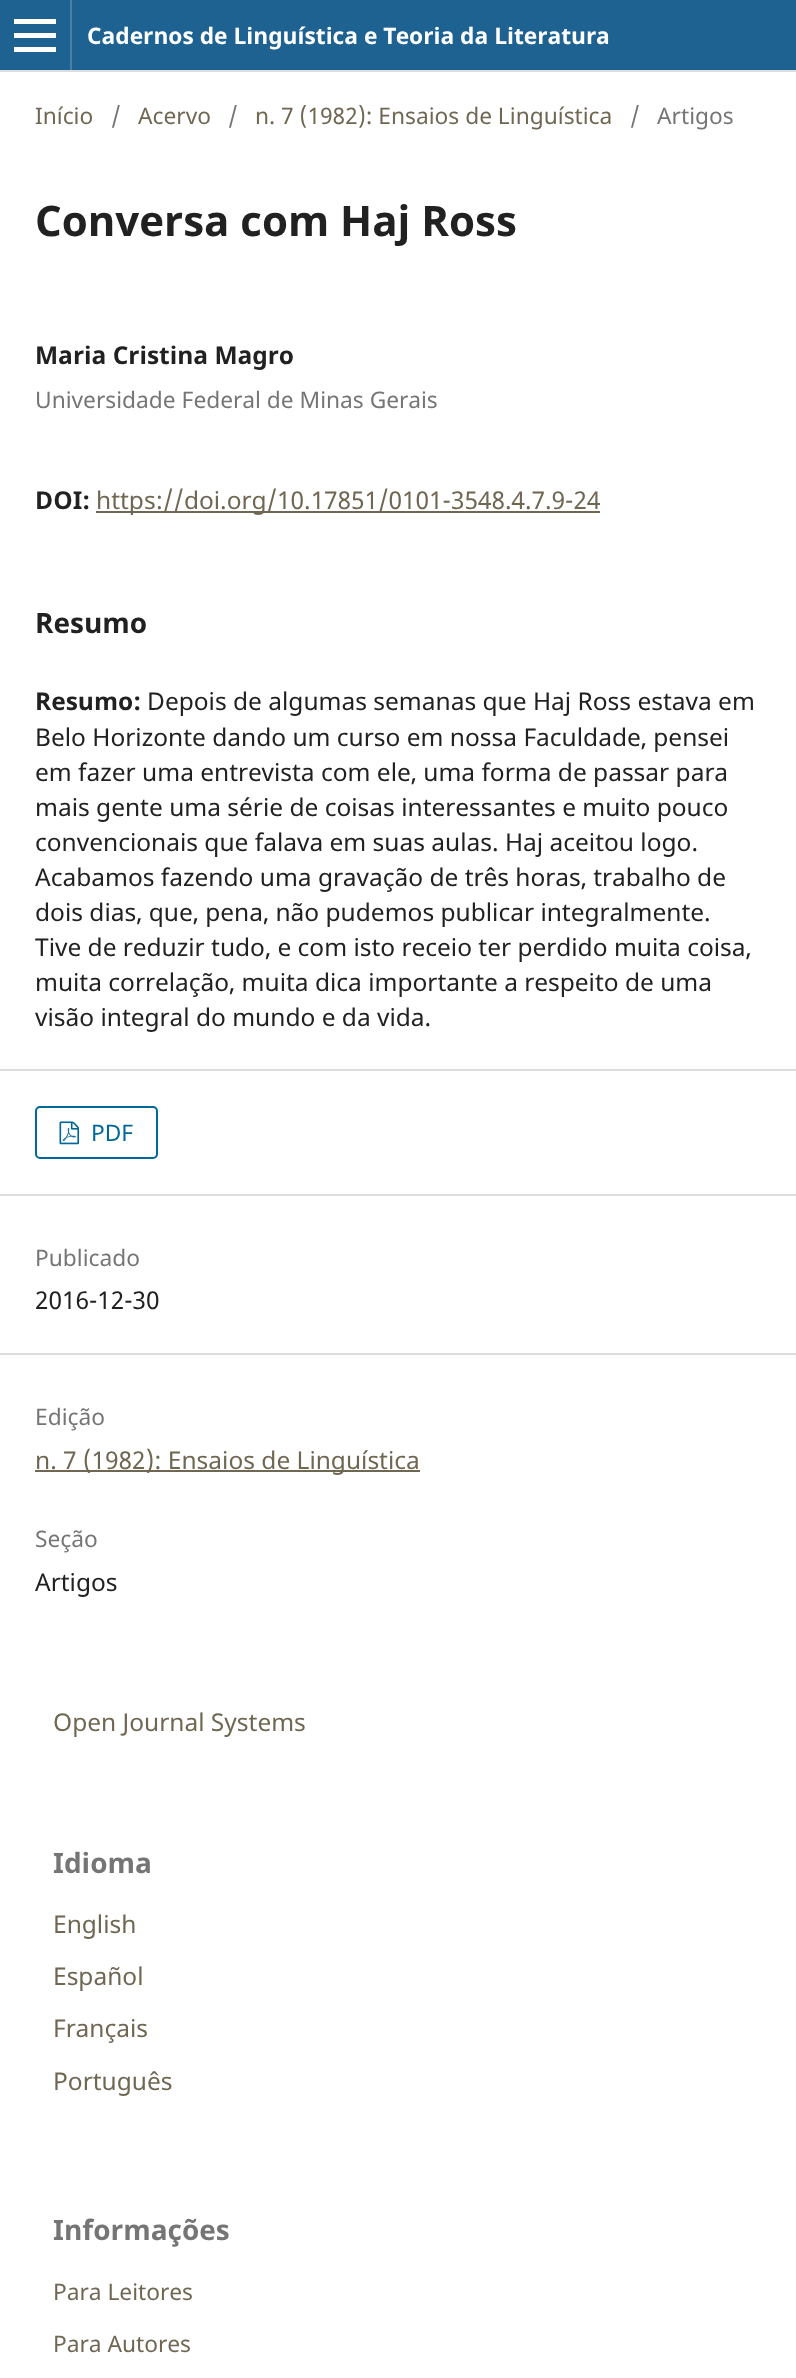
async function draw(canvas) {
  canvas.width = 796
  canvas.height = 2378
  const ctx = canvas.getContext('2d')
  ctx.miterLimit = 4
  ctx.fontKerning = 'normal'
  async function loadImage(src) {
    const img = new Image()
    img.src = src
    await img.decode()
    return img
  }

  ctx.fillStyle = '#fff'
  ctx.fillRect(0, 0, 796, 2378)
  ctx.fillStyle = '#1e6292'
  ctx.fillRect(0, 0, 796, 70)
  ctx.fillStyle = '#ddd'
  ctx.fillRect(0, 70, 796, 2)
  ctx.fillStyle = '#4b81a8'
  ctx.fillRect(70, 0, 2, 70)
  ctx.fillStyle = '#fff'
  ctx.fillRect(14, 47, 42, 5)
  ctx.fillRect(14, 19, 42, 5)
  ctx.fillRect(14, 33, 42, 5)
  ctx.font = 'bold 22.75px Noto Sans'
  ctx.fillText('Cadernos de Linguística e Teoria da Literatura', 87, 44)
  ctx.font = '22.75px Noto Sans'
  ctx.fillStyle = '#706753'
  ctx.fillText('Início', 35, 124)
  ctx.fillStyle = '#757575'
  ctx.fillText('/', 111, 124)
  ctx.fillStyle = '#706753'
  ctx.fillText('Acervo', 138, 124)
  ctx.fillStyle = '#757575'
  ctx.fillText('/', 228, 124)
  ctx.fillStyle = '#706753'
  ctx.fillText('n. 7 (1982): Ensaios de Linguística', 255, 124)
  ctx.fillStyle = '#757575'
  ctx.fillText('/', 630, 124)
  ctx.fillText('Artigos', 657, 124)
  ctx.font = 'bold 42px Noto Sans'
  ctx.fillStyle = '#212121'
  ctx.fillText('Conversa com Haj Ross', 35, 236)
  ctx.font = 'bold 24.5px Noto Sans'
  ctx.fillText('Maria Cristina Magro', 35, 364)
  ctx.font = '22.75px Noto Sans'
  ctx.fillStyle = '#757575'
  ctx.fillText('Universidade Federal de Minas Gerais', 35, 408)
  ctx.font = 'bold 24.5px Noto Sans'
  ctx.fillStyle = '#212121'
  ctx.fillText('DOI:', 35, 509)
  ctx.fillStyle = '#706753'
  ctx.fillRect(96, 511, 504, 2)
  ctx.font = '24.5px Noto Sans'
  ctx.fillText('https://doi.org/10.17851/0101-3548.4.7.9-24', 96, 509)
  ctx.font = 'bold 28px Noto Sans'
  ctx.fillStyle = '#212121'
  ctx.fillText('Resumo', 35, 633)
  ctx.font = 'bold 24.5px Noto Sans'
  ctx.fillText('Resumo:', 35, 710)
  ctx.font = '24.5px Noto Sans'
  ctx.fillText('Depois de algumas semanas que Haj Ross estava em', 147, 710)
  ctx.fillText('Belo Horizonte dando um curso em nossa Faculdade, pensei', 35, 746)
  ctx.fillText('em fazer uma entrevista com ele, uma forma de passar para', 35, 781)
  ctx.fillText('mais gente uma série de coisas interessantes e muito pouco', 35, 816)
  ctx.fillText('convencionais que falava em suas aulas. Haj aceitou logo.', 35, 851)
  ctx.fillText('Acabamos fazendo uma gravação de três horas, trabalho de', 35, 886)
  ctx.fillText('dois dias, que, pena, não pudemos publicar integralmente.', 35, 921)
  ctx.fillText('Tive de reduzir tudo, e com isto receio ter perdido muita coisa,', 35, 956)
  ctx.fillText('muita correlação, muita dica importante a respeito de uma', 35, 991)
  ctx.fillText('visão integral do mundo e da vida.', 35, 1026)
  ctx.fillStyle = '#ddd'
  ctx.fillRect(0, 1069, 796, 2)
  ctx.fillRect(0, 1194, 796, 2)
  ctx.beginPath()
  ctx.roundRect(36, 1107, 121, 51, 4)
  ctx.strokeStyle = '#006798'
  ctx.lineWidth = 2
  ctx.stroke()
  ctx.drawImage(await loadImage('image0.png'), 59, 1121, 21, 24)
  ctx.font = '22.75px Noto Sans'
  ctx.fillStyle = '#006798'
  ctx.fillText('PDF', 91, 1141)
  ctx.fillStyle = '#ddd'
  ctx.fillRect(0, 1353, 796, 2)
  ctx.fillStyle = '#757575'
  ctx.fillText('Publicado', 35, 1266)
  ctx.font = '24.5px Noto Sans'
  ctx.fillStyle = '#212121'
  ctx.fillText('2016-12-30', 35, 1309)
  ctx.font = '22.75px Noto Sans'
  ctx.fillStyle = '#757575'
  ctx.fillText('Edição', 35, 1425)
  ctx.fillStyle = '#706753'
  ctx.fillRect(35, 1470, 385, 2)
  ctx.font = '24.5px Noto Sans'
  ctx.fillText('n. 7 (1982): Ensaios de Linguística', 35, 1469)
  ctx.font = '22.75px Noto Sans'
  ctx.fillStyle = '#757575'
  ctx.fillText('Seção', 35, 1547)
  ctx.font = '24.5px Noto Sans'
  ctx.fillStyle = '#212121'
  ctx.fillText('Artigos', 35, 1591)
  ctx.fillStyle = '#706753'
  ctx.fillText('Open Journal Systems', 53, 1731)
  ctx.font = 'bold 28px Noto Sans'
  ctx.fillStyle = '#757575'
  ctx.fillText('Idioma', 53, 1873)
  ctx.font = '24.5px Noto Sans'
  ctx.fillStyle = '#706753'
  ctx.fillText('English', 53, 1933)
  ctx.fillText('Español', 53, 1985)
  ctx.fillText('Français', 53, 2037)
  ctx.fillText('Português', 53, 2090)
  ctx.font = 'bold 28px Noto Sans'
  ctx.fillStyle = '#757575'
  ctx.fillText('Informações', 53, 2240)
  ctx.font = '22.75px Noto Sans'
  ctx.fillStyle = '#706753'
  ctx.fillText('Para Leitores', 53, 2300)
  ctx.fillText('Para Autores', 53, 2352)
}

draw(document.querySelector('canvas'))
